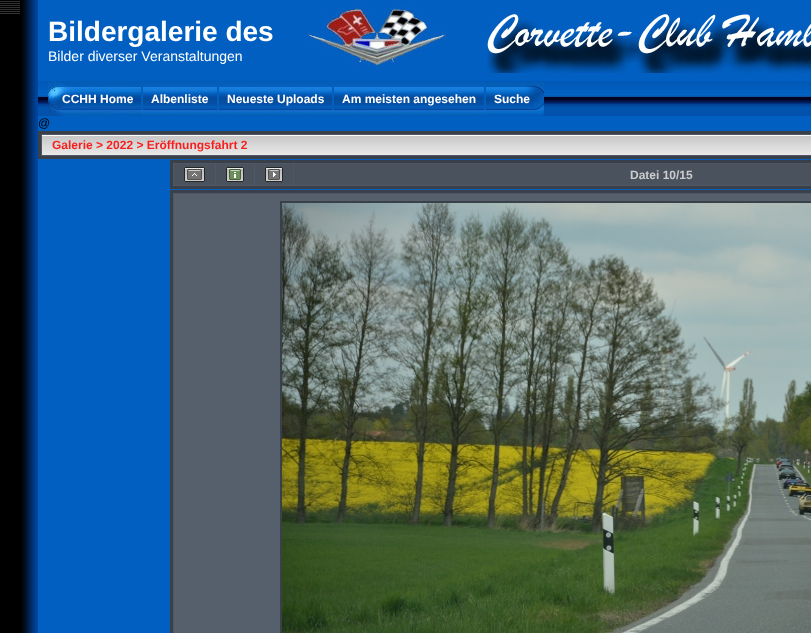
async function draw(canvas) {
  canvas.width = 811
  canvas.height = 633
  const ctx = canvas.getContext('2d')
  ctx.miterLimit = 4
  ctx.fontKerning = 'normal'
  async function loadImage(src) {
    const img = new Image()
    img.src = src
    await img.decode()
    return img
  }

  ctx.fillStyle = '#000'
  ctx.fillRect(0, 0, 811, 633)
  ctx.drawImage(await loadImage('image0.png'), 0, 0, 20, 14)
  ctx.drawImage(await loadImage('image1.png'), 21, 0, 17, 76)
  ctx.fillStyle = '#015fc1'
  ctx.fillRect(38, 0, 773, 633)
  ctx.drawImage(await loadImage('image2.png'), 306, 3, 505, 70)
  ctx.font = 'bold 28px Liberation Sans'
  ctx.fillStyle = '#fff'
  ctx.fillText('Bildergalerie des', 48, 41)
  ctx.font = '14px Liberation Sans'
  ctx.fillText('Bilder diverser Veranstaltungen', 48, 61)
  ctx.drawImage(await loadImage('image3.png'), 21, 76, 17, 557)
  ctx.drawImage(await loadImage('image4.png'), 38, 81, 773, 35)
  ctx.drawImage(await loadImage('image5.png'), 48, 81, 93, 35)
  ctx.font = 'bold 12px Liberation Sans'
  ctx.fillText('CCHH Home', 62, 103)
  ctx.drawImage(await loadImage('image6.png'), 141, 82, 2, 34)
  ctx.drawImage(await loadImage('image7.png'), 143, 81, 74, 35)
  ctx.fillText('Albenliste', 151, 103)
  ctx.drawImage(await loadImage('image6.png'), 217, 82, 2, 34)
  ctx.drawImage(await loadImage('image8.png'), 219, 81, 113, 35)
  ctx.fillText('Neueste Uploads', 227, 103)
  ctx.drawImage(await loadImage('image6.png'), 332, 82, 2, 34)
  ctx.drawImage(await loadImage('image9.png'), 334, 81, 150, 35)
  ctx.fillText('Am meisten angesehen', 342, 103)
  ctx.drawImage(await loadImage('image6.png'), 484, 82, 2, 34)
  ctx.drawImage(await loadImage('image10.png'), 486, 82, 58, 34)
  ctx.fillText('Suche', 494, 103)
  ctx.font = '12px Liberation Sans'
  ctx.fillStyle = '#000'
  ctx.fillText('@', 38, 127)
  ctx.fillStyle = '#4f5864'
  ctx.beginPath()
  ctx.rect(39.5, 132.5, 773, 25)
  ctx.fill()
  ctx.strokeStyle = '#394049'
  ctx.lineWidth = 3
  ctx.stroke()
  ctx.drawImage(await loadImage('image11.png'), 42, 135, 769, 20)
  ctx.font = 'bold 12px Liberation Sans'
  ctx.fillStyle = '#f81e1e'
  ctx.fillText('Galerie > 2022 > Eröffnungsfahrt 2', 52, 149)
  ctx.fillStyle = '#4f5864'
  ctx.beginPath()
  ctx.rect(171.5, 161.5, 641, 26)
  ctx.fill()
  ctx.stroke()
  ctx.fillStyle = '#49525d'
  ctx.fillRect(174, 164, 41, 21)
  ctx.drawImage(await loadImage('image12.png'), 184, 167, 21, 15)
  ctx.fillRect(216, 164, 38, 21)
  ctx.drawImage(await loadImage('image13.png'), 226, 167, 18, 15)
  ctx.fillRect(255, 164, 38, 21)
  ctx.drawImage(await loadImage('image14.png'), 265, 167, 18, 15)
  ctx.fillRect(294, 164, 517, 21)
  ctx.fillStyle = '#ccc'
  ctx.fillText('Datei 10/15', 630, 179)
  ctx.fillStyle = '#4f5864'
  ctx.beginPath()
  ctx.rect(171.5, 191.5, 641, 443)
  ctx.fill()
  ctx.stroke()
  ctx.fillStyle = '#56606d'
  ctx.fillRect(174, 194, 637, 439)
  ctx.strokeStyle = '#394048'
  ctx.lineWidth = 2
  ctx.strokeRect(281, 202, 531, 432)
  ctx.drawImage(await loadImage('image15.png'), 282, 203, 529, 430)
}

draw(document.querySelector('canvas'))
